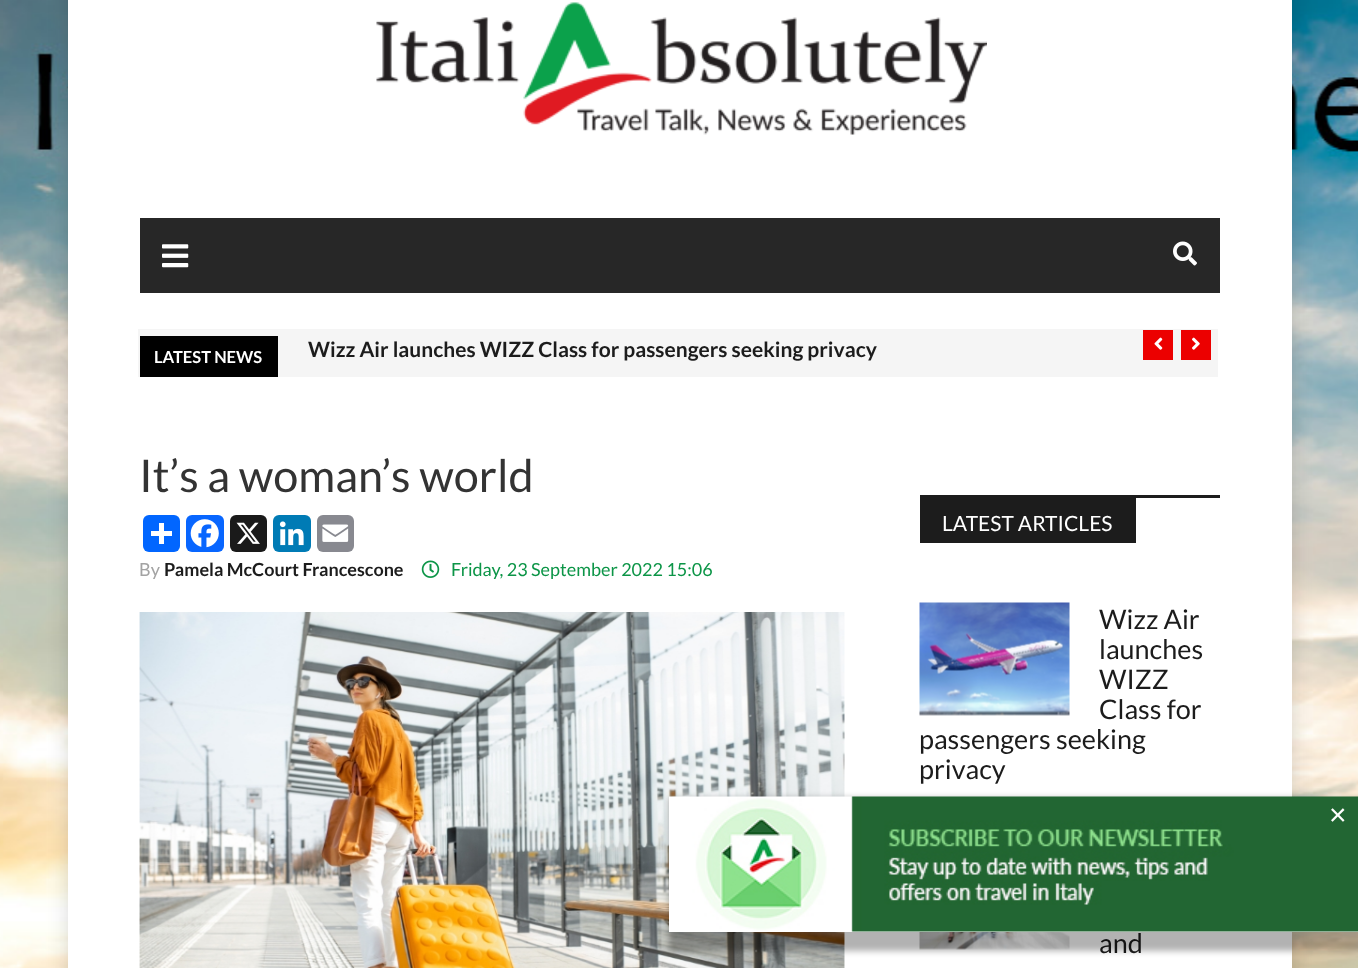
async function draw(canvas) {
  canvas.width = 1358
  canvas.height = 968
  const ctx = canvas.getContext('2d')
  ctx.miterLimit = 4
  ctx.fontKerning = 'normal'
  async function loadImage(src) {
    const img = new Image()
    img.src = src
    await img.decode()
    return img
  }

  ctx.fillStyle = '#fff'
  ctx.fillRect(0, 0, 1358, 968)
  ctx.drawImage(await loadImage('image0.png'), 0, 0, 1358, 968)
  ctx.fillStyle = '#00000026'
  ctx.filter = 'blur(10px)'
  ctx.beginPath()
  ctx.rect(68, -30, 1224, 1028)
  ctx.fill()
  ctx.filter = 'none'
  ctx.fillStyle = '#fff'
  ctx.fillRect(68, 0, 1224, 968)
  ctx.drawImage(await loadImage('image1.png'), 376, 2, 611, 133)
  ctx.fillStyle = '#272727'
  ctx.fillRect(140, 218, 1080, 75)
  ctx.drawImage(await loadImage('image2.png'), 162, 244, 27, 24)
  ctx.drawImage(await loadImage('image3.png'), 1173, 241, 24, 25)
  ctx.fillStyle = '#f5f5f5'
  ctx.fillRect(138, 329, 1080, 48)
  ctx.fillStyle = '#000'
  ctx.fillRect(140, 336, 138, 41)
  ctx.font = 'bold 16.5px Lato'
  ctx.fillStyle = '#fff'
  ctx.fillText('LATEST NEWS', 154, 363)
  ctx.font = 'bold 21px Lato'
  ctx.fillStyle = '#1c1c1c'
  ctx.fillText('Wizz Air launches WIZZ Class for passengers seeking privacy', 308, 357)
  ctx.fillStyle = '#ec0000'
  ctx.fillRect(1143, 330, 30, 30)
  ctx.drawImage(await loadImage('image4.png'), 1154, 337, 9, 13)
  ctx.fillRect(1181, 330, 30, 30)
  ctx.drawImage(await loadImage('image5.png'), 1192, 337, 8, 13)
  ctx.font = '45px Lato'
  ctx.fillStyle = '#333'
  ctx.fillText('It’s a woman’s world', 139, 492)
  ctx.fillStyle = '#0166ff'
  ctx.beginPath()
  ctx.roundRect(143, 515, 37, 37, 6)
  ctx.fill()
  ctx.fillStyle = '#fff'
  ctx.fillRect(159, 523, 5, 21)
  ctx.fillRect(151, 531, 21, 5)
  ctx.fillStyle = '#0866ff'
  ctx.beginPath()
  ctx.roundRect(186, 515, 38, 37, 6)
  ctx.fill()
  ctx.drawImage(await loadImage('image6.png'), 190, 519, 29, 29)
  ctx.fillStyle = '#1a1a1a'
  ctx.beginPath()
  ctx.roundRect(230, 515, 37, 37, 6)
  ctx.fill()
  ctx.drawImage(await loadImage('image7.png'), 236, 522, 24, 22)
  ctx.fillStyle = '#007bb5'
  ctx.beginPath()
  ctx.roundRect(273, 515, 38, 37, 6)
  ctx.fill()
  ctx.drawImage(await loadImage('image8.png'), 279, 521, 25, 25)
  ctx.fillStyle = '#888990'
  ctx.beginPath()
  ctx.roundRect(317, 515, 37, 37, 6)
  ctx.fill()
  ctx.drawImage(await loadImage('image9.png'), 322, 524, 27, 18)
  ctx.font = '18px Lato'
  ctx.fillStyle = '#a3a3a3'
  ctx.fillText('By', 139, 576)
  ctx.font = 'bold 18px Lato'
  ctx.fillStyle = '#1c1c1c'
  ctx.fillText('Pamela McCourt Francescone', 164, 576)
  ctx.drawImage(await loadImage('image10.png'), 421, 560, 19, 18)
  ctx.font = '18px Lato'
  ctx.fillStyle = '#0c9547'
  ctx.fillText('Friday, 23 September 2022 15:06', 451, 576)
  ctx.drawImage(await loadImage('image11.png'), 139, 612, 706, 356)
  ctx.fillStyle = '#1c1c1c'
  ctx.fillRect(920, 495, 300, 3)
  ctx.fillRect(920, 498, 216, 45)
  ctx.font = '21px Lato'
  ctx.fillStyle = '#fff'
  ctx.fillText('LATEST ARTICLES', 942, 531)
  ctx.drawImage(await loadImage('image12.png'), 919, 602, 151, 114)
  ctx.font = '27px Lato'
  ctx.fillStyle = '#1c1c1c'
  ctx.fillText('Wizz Air', 1099, 629)
  ctx.fillText('launches', 1099, 659)
  ctx.fillText('WIZZ', 1099, 689)
  ctx.fillText('Class for', 1099, 719)
  ctx.fillText('passengers seeking', 919, 749)
  ctx.fillText('privacy', 919, 779)
  ctx.drawImage(await loadImage('image13.png'), 919, 932, 151, 18)
  ctx.fillText('and', 1099, 953)
  ctx.fillStyle = '#0000014d'
  ctx.filter = 'blur(3px)'
  ctx.beginPath()
  ctx.rect(669, 798, 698, 153)
  ctx.fill()
  ctx.filter = 'none'
  ctx.fillStyle = '#fff'
  ctx.fillRect(669, 931, 689, 1)
  ctx.drawImage(await loadImage('image14.png'), 669, 796, 689, 136)
  ctx.font = '30px Liberation Sans'
  ctx.fillText('×', 1329, 825)
}

draw(document.querySelector('canvas'))
